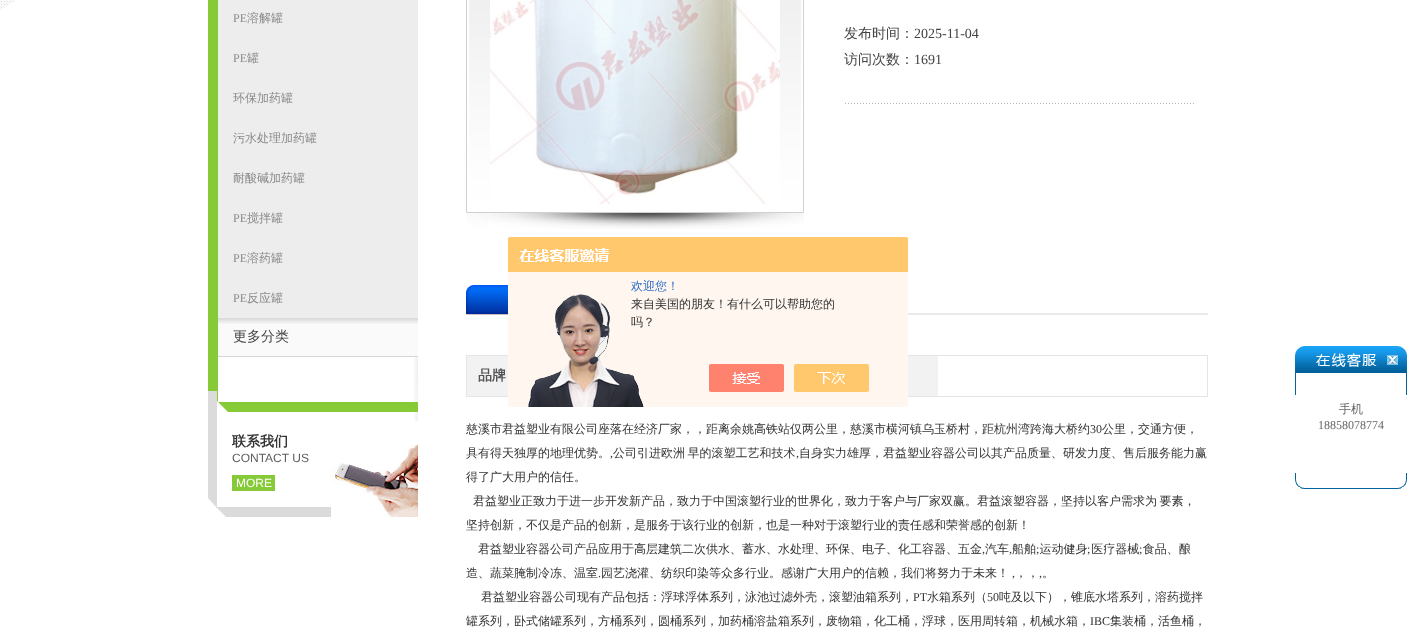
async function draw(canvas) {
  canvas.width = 1416
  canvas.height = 644
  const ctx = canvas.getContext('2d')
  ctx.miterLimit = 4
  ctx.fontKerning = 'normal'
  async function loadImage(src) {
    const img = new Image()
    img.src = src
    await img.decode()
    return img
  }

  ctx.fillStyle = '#fff'
  ctx.fillRect(0, 0, 1416, 644)
  ctx.drawImage(await loadImage('image0.png'), 0, 0, 15, 10)
  ctx.drawImage(await loadImage('image5.png'), 414, 357, 4, 64)
  ctx.drawImage(await loadImage('image1.png'), 208, 357, 210, 55)
  ctx.fillStyle = '#86ca37'
  ctx.fillRect(208, 0, 10, 357)
  ctx.fillStyle = '#d6d6d6'
  ctx.fillRect(218, 356, 200, 1)
  ctx.fillStyle = '#ededed'
  ctx.fillRect(218, 0, 200, 318)
  ctx.font = '12px Liberation Serif'
  ctx.fillStyle = '#8a8a8a'
  ctx.fillText('PE', 233, 22)
  ctx.font = '500 12px WenQuanYi Zen Hei'
  ctx.fillText('溶解罐', 247, 22)
  ctx.font = '12px Liberation Serif'
  ctx.fillText('PE', 233, 62)
  ctx.font = '500 12px WenQuanYi Zen Hei'
  ctx.fillText('罐', 247, 62)
  ctx.fillText('环保加药罐', 233, 102)
  ctx.fillText('污水处理加药罐', 233, 142)
  ctx.fillText('耐酸碱加药罐', 233, 182)
  ctx.font = '12px Liberation Serif'
  ctx.fillText('PE', 233, 222)
  ctx.font = '500 12px WenQuanYi Zen Hei'
  ctx.fillText('搅拌罐', 247, 222)
  ctx.font = '12px Liberation Serif'
  ctx.fillText('PE', 233, 262)
  ctx.font = '500 12px WenQuanYi Zen Hei'
  ctx.fillText('溶药罐', 247, 262)
  ctx.font = '12px Liberation Serif'
  ctx.fillText('PE', 233, 302)
  ctx.font = '500 12px WenQuanYi Zen Hei'
  ctx.fillText('反应罐', 247, 302)
  ctx.fillStyle = '#fafafa'
  ctx.fillRect(218, 324, 200, 32)
  ctx.drawImage(await loadImage('image2.png'), 218, 318, 200, 6)
  ctx.font = '500 14px WenQuanYi Zen Hei'
  ctx.fillStyle = '#434343'
  ctx.fillText('更多分类', 233, 341)
  ctx.drawImage(await loadImage('image3.png'), 208, 391, 123, 126)
  ctx.drawImage(await loadImage('image4.png'), 331, 421, 87, 96)
  ctx.font = 'bold 14px WenQuanYi Zen Hei'
  ctx.fillStyle = '#333'
  ctx.fillText('联系我们', 232, 446)
  ctx.font = '12px Liberation Sans'
  ctx.fillStyle = '#5d5d5d'
  ctx.fillText('CONTACT US', 232, 462)
  ctx.fillStyle = '#86ca37'
  ctx.fillRect(232, 475, 43, 16)
  ctx.fillStyle = '#fff'
  ctx.fillText('MORE', 236, 487)
  ctx.drawImage(await loadImage('image6.png'), 466, 0, 338, 229)
  ctx.drawImage(await loadImage('image7.png'), 490, 0, 290, 204)
  ctx.font = '500 14px WenQuanYi Zen Hei'
  ctx.fillStyle = '#434343'
  ctx.fillText('发布时间：', 844, 38)
  ctx.font = '14px Liberation Serif'
  ctx.fillText('2025-11-04', 914, 38)
  ctx.font = '500 14px WenQuanYi Zen Hei'
  ctx.fillText('访问次数：', 844, 64)
  ctx.font = '14px Liberation Serif'
  ctx.fillText('1691', 914, 64)
  ctx.drawImage(await loadImage('image8.png'), 845, 103, 349, 1)
  ctx.fillStyle = '#eaeaea'
  ctx.fillRect(908, 313, 300, 2)
  ctx.drawImage(await loadImage('image9.png'), 466, 285, 42, 30)
  ctx.fillStyle = '#e6e5e5'
  ctx.fillRect(466, 355, 742, 1)
  ctx.fillRect(1207, 355, 1, 42)
  ctx.fillRect(466, 355, 1, 42)
  ctx.fillStyle = '#f2f2f2'
  ctx.fillRect(467, 356, 41, 40)
  ctx.fillStyle = '#e6e5e5'
  ctx.fillRect(466, 396, 42, 1)
  ctx.font = 'bold 14px WenQuanYi Zen Hei'
  ctx.fillStyle = '#555'
  ctx.fillText('品牌', 478, 380)
  ctx.fillStyle = '#f2f2f2'
  ctx.fillRect(908, 356, 30, 40)
  ctx.fillStyle = '#e6e5e5'
  ctx.fillRect(908, 396, 300, 1)
  ctx.font = '500 12px WenQuanYi Zen Hei'
  ctx.fillStyle = '#333'
  ctx.fillText('慈溪市君益塑业有限公司座落在经济厂家，，距离余姚高铁站仅两公里，慈溪市横河镇乌玉桥村，距杭州湾跨海大桥约', 466, 433)
  ctx.font = '12px Liberation Serif'
  ctx.fillText('30', 1090, 433)
  ctx.font = '500 12px WenQuanYi Zen Hei'
  ctx.fillText('公里，交通方便，', 1102, 433)
  ctx.fillText('具有得天独厚的地理优势。', 466, 457)
  ctx.font = '12px Liberation Serif'
  ctx.fillText(',', 610, 457)
  ctx.wordSpacing = '-1px'
  ctx.font = '500 12px WenQuanYi Zen Hei'
  ctx.fillText('公司引进欧洲 早的滚塑工艺和技术', 613, 457)
  ctx.wordSpacing = '0px'
  ctx.font = '12px Liberation Serif'
  ctx.fillText(',', 796, 457)
  ctx.font = '500 12px WenQuanYi Zen Hei'
  ctx.fillText('自身实力雄厚，君益塑业容器公司以其产品质量、研发力度、售后服务能力赢', 799, 457)
  ctx.fillText('得了广大用户的信任。', 466, 481)
  ctx.wordSpacing = '-1px'
  ctx.fillText('君益塑业正致力于进一步开发新产品，致力于中国滚塑行业的世界化，致力于客户与厂家双赢。君益滚塑容器，坚持以客户需求为 要素，', 473, 505)
  ctx.wordSpacing = '0px'
  ctx.fillText('坚持创新，不仅是产品的创新，是服务于该行业的创新，也是一种对于滚塑行业的责任感和荣誉感的创新！', 466, 529)
  ctx.fillText('君益塑业容器公司产品应用于高层建筑二次供水、蓄水、水处理、环保、电子、化工容器、五金', 478, 553)
  ctx.fillText('汽车', 985, 553)
  ctx.fillText('船舶 运动健身 医疗器械 食品、酿', 1012, 553)
  ctx.font = '12px Liberation Serif'
  ctx.fillText(',', 982, 553)
  ctx.fillText(',', 1009, 553)
  ctx.fillText(';', 1036, 553)
  ctx.fillText(';', 1087, 553)
  ctx.fillText(';', 1139, 553)
  ctx.font = '500 12px WenQuanYi Zen Hei'
  ctx.fillText('造、蔬菜腌制冷冻、温室', 466, 577)
  ctx.font = '12px Liberation Serif'
  ctx.fillText('.', 598, 577)
  ctx.font = '500 12px WenQuanYi Zen Hei'
  ctx.fillText('园艺浇灌、纺织印染等众多行业。感谢广大用户的信赖，我们将努力于未来！', 601, 577)
  ctx.font = '12px Liberation Serif'
  ctx.fillText(',', 1012, 577)
  ctx.font = '500 12px WenQuanYi Zen Hei'
  ctx.fillText('，，', 1015, 577)
  ctx.font = '12px Liberation Serif'
  ctx.fillText(',', 1039, 577)
  ctx.font = '500 12px WenQuanYi Zen Hei'
  ctx.fillText('。', 1042, 577)
  ctx.fillText('君益塑业容器公司现有产品包括：浮球浮体系列，泳池过滤外壳，滚塑油箱系列，', 481, 601)
  ctx.font = '12px Liberation Serif'
  ctx.fillText('PT', 913, 601)
  ctx.font = '500 12px WenQuanYi Zen Hei'
  ctx.fillText('水箱系列（', 927, 601)
  ctx.font = '12px Liberation Serif'
  ctx.fillText('50', 987, 601)
  ctx.font = '500 12px WenQuanYi Zen Hei'
  ctx.fillText('吨及以下），锥底水塔系列，溶药搅拌', 999, 601)
  ctx.fillText('罐系列，卧式储罐系列，方桶系列，圆桶系列，加药桶溶盐箱系列，废物箱，化工桶，浮球，医用周转箱，机械水箱，', 466, 625)
  ctx.font = '12px Liberation Serif'
  ctx.fillText('IBC', 1090, 625)
  ctx.font = '500 12px WenQuanYi Zen Hei'
  ctx.fillText('集装桶，活鱼桶，', 1110, 625)
  ctx.drawImage(await loadImage('image10.png'), 508, 237, 400, 170)
  ctx.fillStyle = '#2e6ec6'
  ctx.fillText('欢迎您！', 631, 290)
  ctx.fillStyle = '#333'
  ctx.fillText('来自美国的朋友！有什么可以帮助您的', 631, 308)
  ctx.fillText('吗？', 631, 326)
  ctx.drawImage(await loadImage('image11.png'), 1295, 346, 112, 49)
  ctx.fillStyle = '#666'
  ctx.fillText('手机', 1339, 413)
  ctx.font = '12px Liberation Serif'
  ctx.fillText('18858078774', 1318, 429)
  ctx.drawImage(await loadImage('image12.png'), 1295, 473, 112, 16)
}

draw(document.querySelector('canvas'))
